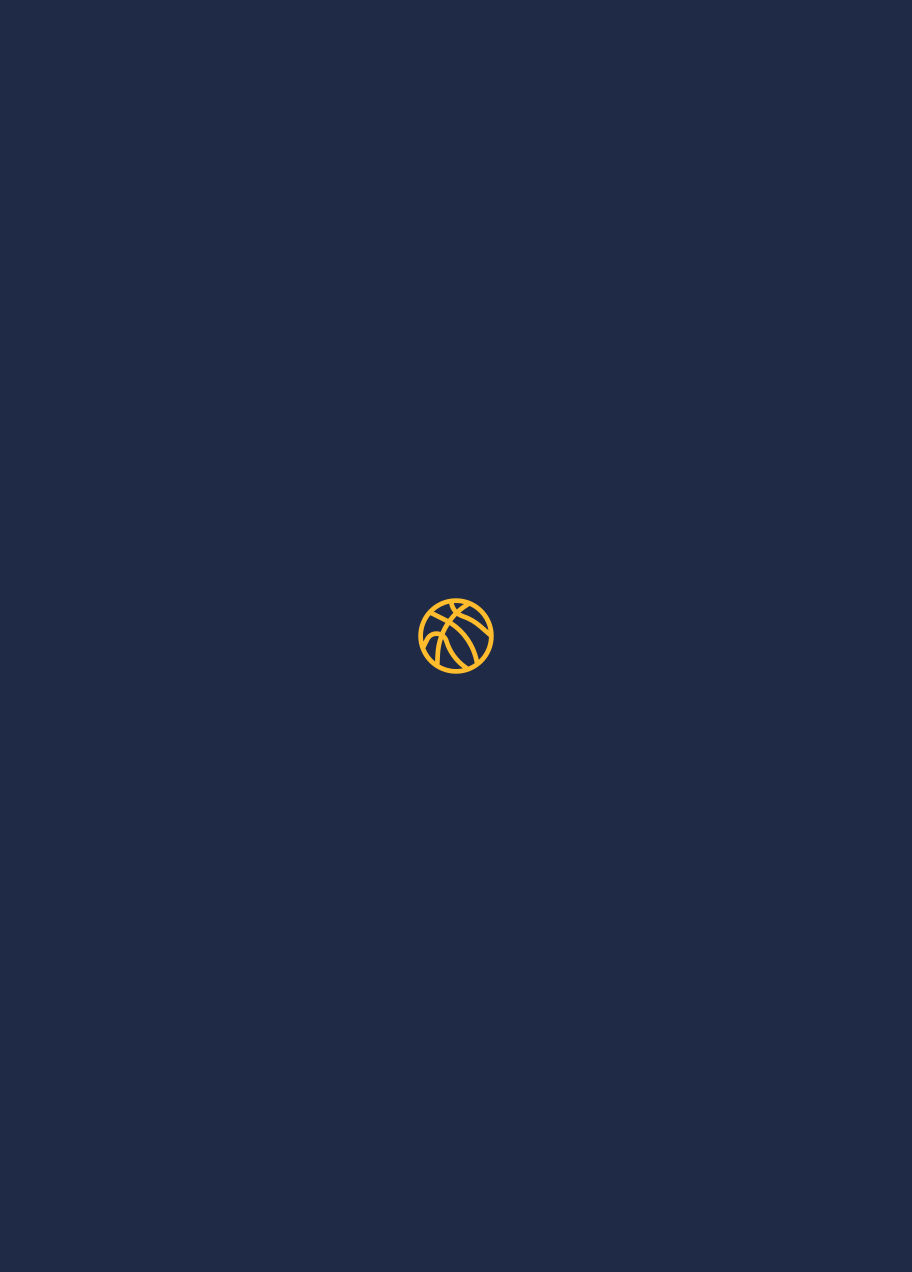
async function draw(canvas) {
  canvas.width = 912;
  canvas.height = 1272;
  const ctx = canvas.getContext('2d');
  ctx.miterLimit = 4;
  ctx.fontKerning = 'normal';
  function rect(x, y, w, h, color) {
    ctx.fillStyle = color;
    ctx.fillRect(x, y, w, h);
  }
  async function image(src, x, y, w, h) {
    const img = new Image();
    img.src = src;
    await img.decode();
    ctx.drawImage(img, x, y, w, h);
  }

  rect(0, 0, 912, 1272, '#1f2b46');
  await image('assets/img1.png', 418, 598, 76, 76);
}

draw(document.querySelector('canvas'));
